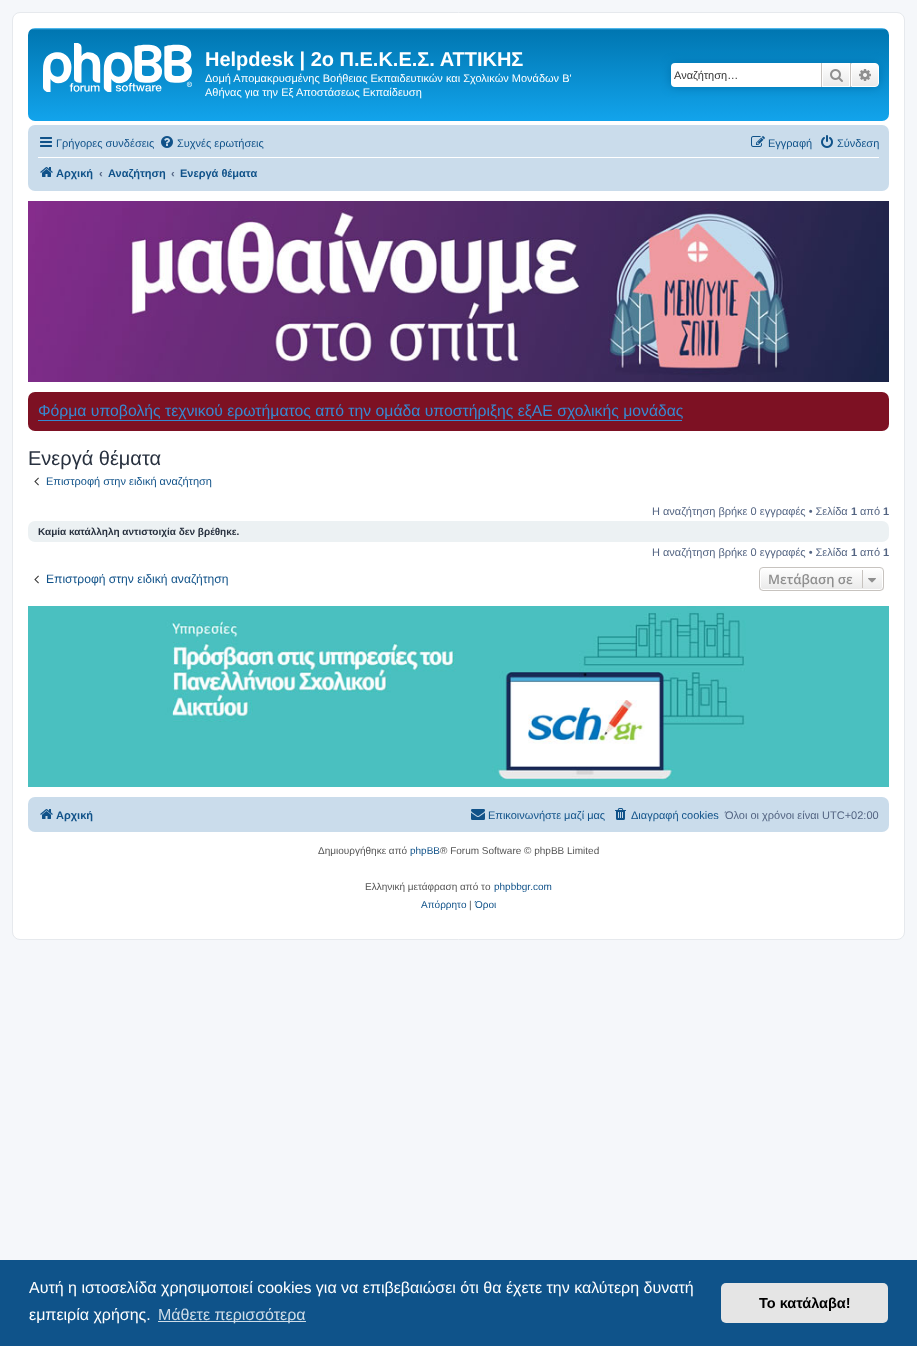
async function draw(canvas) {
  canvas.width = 917;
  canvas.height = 1346;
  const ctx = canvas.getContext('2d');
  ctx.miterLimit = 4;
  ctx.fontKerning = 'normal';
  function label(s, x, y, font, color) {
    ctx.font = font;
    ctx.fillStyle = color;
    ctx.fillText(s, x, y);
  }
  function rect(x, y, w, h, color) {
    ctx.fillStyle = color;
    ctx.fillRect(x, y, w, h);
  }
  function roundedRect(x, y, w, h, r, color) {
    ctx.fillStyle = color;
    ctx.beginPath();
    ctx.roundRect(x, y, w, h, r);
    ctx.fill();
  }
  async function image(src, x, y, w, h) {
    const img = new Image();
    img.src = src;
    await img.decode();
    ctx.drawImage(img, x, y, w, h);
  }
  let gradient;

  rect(0, 0, 917, 1346, '#f5f7fa');
  ctx.fillStyle = '#fff';
  ctx.beginPath();
  ctx.roundRect(12.5, 12.5, 892, 927, 7.5);
  ctx.fill();
  ctx.strokeStyle = '#e6e9ed';
  ctx.stroke();
  gradient = ctx.createLinearGradient(459, 28, 459, 121);
  gradient.addColorStop(0, '#6aceff');
  gradient.addColorStop(0.02, '#0076b1');
  gradient.addColorStop(0.99, '#12a3eb');
  gradient.addColorStop(1, '#12a3eb');
  ctx.fillStyle = gradient;
  ctx.beginPath();
  ctx.roundRect(28, 28, 861, 93, 7);
  ctx.fill();
  await image('assets/img1.png', 43, 43, 149, 49);
  label('Helpdesk | 2ο Π.Ε.Κ.Ε.Σ. ΑΤΤΙΚΗΣ', 205, 66, 'bold 20px Liberation Sans', '#fff');
  label('Δομή Απομακρυσμένης Βοήθειας Εκπαιδευτικών και Σχολικών Μονάδων B\'', 205, 82, '11px Liberation Sans', '#fff');
  label('Αθήνας για την Εξ Αποστάσεως Εκπαίδευση', 205, 96, '11px Liberation Sans', '#fff');
  ctx.fillStyle = '#0075b0';
  ctx.filter = 'blur(5px)';
  ctx.beginPath();
  ctx.roundRect(671, 63, 208, 24, 4);
  ctx.fill();
  ctx.filter = 'none';
  ctx.fillStyle = '#fff';
  ctx.beginPath();
  ctx.roundRect(671, 63, 150, 24, [4, 0, 0, 4]);
  ctx.fill();
  ctx.save();
  ctx.beginPath();
  ctx.rect(674, 69, 140, 12);
  ctx.clip();
  label('Αναζήτηση…', 674, 79, '11px Liberation Sans', '#333');
  ctx.restore();
  gradient = ctx.createLinearGradient(836, 63, 836, 87);
  gradient.addColorStop(0, '#fff');
  gradient.addColorStop(1, '#e9e9e9');
  ctx.fillStyle = gradient;
  ctx.fillRect(823, 64, 26, 22);
  ctx.strokeStyle = '#fff';
  ctx.strokeRect(822.5, 63.5, 27, 23);
  rect(850, 63, 1, 24, '#c7c3bf');
  rect(821, 63, 1, 24, '#c7c3bf');
  await image('assets/img2.png', 830, 69, 13, 13);
  gradient = ctx.createLinearGradient(865, 63, 865, 87);
  gradient.addColorStop(0, '#fff');
  gradient.addColorStop(1, '#e9e9e9');
  ctx.fillStyle = gradient;
  ctx.beginPath();
  ctx.roundRect(851.5, 63.5, 27, 23, [0, 3.5, 3.5, 0]);
  ctx.fill();
  ctx.stroke();
  await image('assets/img3.png', 859, 69, 12, 12);
  roundedRect(28, 125, 861, 66, 7, '#cadceb');
  await image('assets/img4.png', 40, 137, 12, 10);
  label('Γρήγορες συνδέσεις', 56, 147, '11px Liberation Sans', '#105289');
  await image('assets/img5.png', 161, 136, 12, 12);
  label('Συχνές ερωτήσεις', 177, 147, '11px Liberation Sans', '#105289');
  await image('assets/img6.png', 751, 136, 14, 11);
  label('Εγγραφή', 768, 147, '11px Liberation Sans', '#105289');
  await image('assets/img7.png', 821, 135, 12, 13);
  label('Σύνδεση', 837, 147, '11px Liberation Sans', '#105289');
  rect(38, 157, 841, 1, '#fff');
  await image('assets/img8.png', 40, 167, 13, 10);
  label('Αρχική', 56, 177, 'bold 11px Liberation Sans', '#105289');
  label('‹', 99, 177, 'bold 11px Liberation Sans', '#536482');
  label('Αναζήτηση', 108, 177, 'bold 11px Liberation Sans', '#105289');
  label('‹', 171, 177, 'bold 11px Liberation Sans', '#536482');
  label('Ενεργά θέματα', 180, 177, 'bold 11px Liberation Sans', '#105289');
  await image('assets/img9.png', 28, 201, 861, 181);
  roundedRect(28, 392, 861, 39, 7, '#7d1123');
  rect(38, 420, 644, 1, '#368ad2');
  label('Φόρμα υποβολής τεχνικού ερωτήματος από την ομάδα υποστήριξης εξΑΕ σχολικής μονάδας', 38, 416, '15.75px Liberation Sans', '#368ad2');
  label('Ενεργά θέματα', 28, 465, '20px Liberation Sans', '#28313f');
  await image('assets/img10.png', 34, 477, 5, 9);
  label('Επιστροφή στην ειδική αναζήτηση', 46, 485, '11px Liberation Sans', '#105289');
  label('Η αναζήτηση βρήκε 0 εγγραφές • Σελίδα', 652, 515, '11px Liberation Sans', '#536482');
  label('1', 851, 515, 'bold 11px Liberation Sans', '#536482');
  label('από', 860, 515, '11px Liberation Sans', '#536482');
  label('1', 883, 515, 'bold 11px Liberation Sans', '#536482');
  roundedRect(28, 521, 861, 21, 7, '#ecf1f3');
  label('Καμία κατάλληλη αντιστοιχία δεν βρέθηκε.', 38, 535, 'bold 10px Liberation Sans', '#28313f');
  label('Η αναζήτηση βρήκε 0 εγγραφές • Σελίδα', 652, 556, '11px Liberation Sans', '#536482');
  label('1', 851, 556, 'bold 11px Liberation Sans', '#536482');
  label('από', 860, 556, '11px Liberation Sans', '#536482');
  label('1', 883, 556, 'bold 11px Liberation Sans', '#536482');
  await image('assets/img10.png', 34, 575, 5, 9);
  label('Επιστροφή στην ειδική αναζήτηση', 46, 583, '12.1px Liberation Sans', '#105289');
  ctx.save();
  ctx.beginPath();
  ctx.roundRect(759, 567, 125, 24, 4);
  ctx.clip();
  gradient = ctx.createLinearGradient(822, 568, 822, 590);
  gradient.addColorStop(0, '#fff');
  gradient.addColorStop(1, '#e9e9e9');
  ctx.fillStyle = gradient;
  ctx.fillRect(759, 568, 125, 22);
  ctx.restore();
  ctx.beginPath();
  ctx.roundRect(760.5, 568.5, 122, 21, 2.5);
  ctx.stroke();
  ctx.beginPath();
  ctx.roundRect(759.5, 567.5, 124, 23, 3.5);
  ctx.strokeStyle = '#c7c3bf';
  ctx.stroke();
  label('Μετάβαση σε', 768, 584, '600 13px Open Sans', '#8f8f8f');
  rect(862, 570, 1, 18, '#c7c3bf');
  await image('assets/img11.png', 868, 578, 8, 5);
  await image('assets/img12.png', 28, 606, 861, 181);
  roundedRect(28, 797, 861, 35, 7, '#cadceb');
  await image('assets/img8.png', 40, 809, 13, 10);
  label('Αρχική', 56, 819, 'bold 11px Liberation Sans', '#105289');
  await image('assets/img13.png', 471, 809, 14, 11);
  label('Επικοινωνήστε μαζί μας', 488, 819, '11px Liberation Sans', '#105289');
  await image('assets/img14.png', 615, 808, 11, 12);
  label('Διαγραφή cookies', 631, 819, '11px Liberation Sans', '#105289');
  label('Όλοι οι χρόνοι είναι UTC+02:00', 725, 819, '11px Liberation Sans', '#536482');
  label('Δημιουργήθηκε από', 318, 854, '10px Liberation Sans', '#555');
  label('phpBB', 410, 854, '10px Liberation Sans', '#105289');
  label('® Forum Software © phpBB Limited', 440, 854, '10px Liberation Sans', '#555');
  label('Ελληνική μετάφραση από το', 365, 890, '10px Liberation Sans', '#555');
  label('phpbbgr.com', 494, 890, '10px Liberation Sans', '#105289');
  label('Απόρρητο', 421, 908, '10px Liberation Sans', '#105289');
  label('|', 469, 908, '10px Liberation Sans', '#555');
  label('Όροι', 475, 908, '10px Liberation Sans', '#105289');
  rect(0, 1260, 917, 86, '#0f538a');
  label('Αυτή η ιστοσελίδα χρησιμοποιεί cookies για να επιβεβαιώσει ότι θα έχετε την καλύτερη δυνατή', 29, 1293, '16px Liberation Sans', '#fff');
  label('εμπειρία χρήσης.', 29, 1320, '16px Liberation Sans', '#fff');
  rect(158, 1321, 148, 1, '#cfdde8');
  label('Μάθετε περισσότερα', 158, 1320, '16px Liberation Sans', '#cfdde8');
  roundedRect(721, 1283, 167, 40, 5, '#e5e5e5');
  label('Το κατάλαβα!', 759, 1308, 'bold 14.5px Liberation Sans', '#000');
}

draw(document.querySelector('canvas'));
